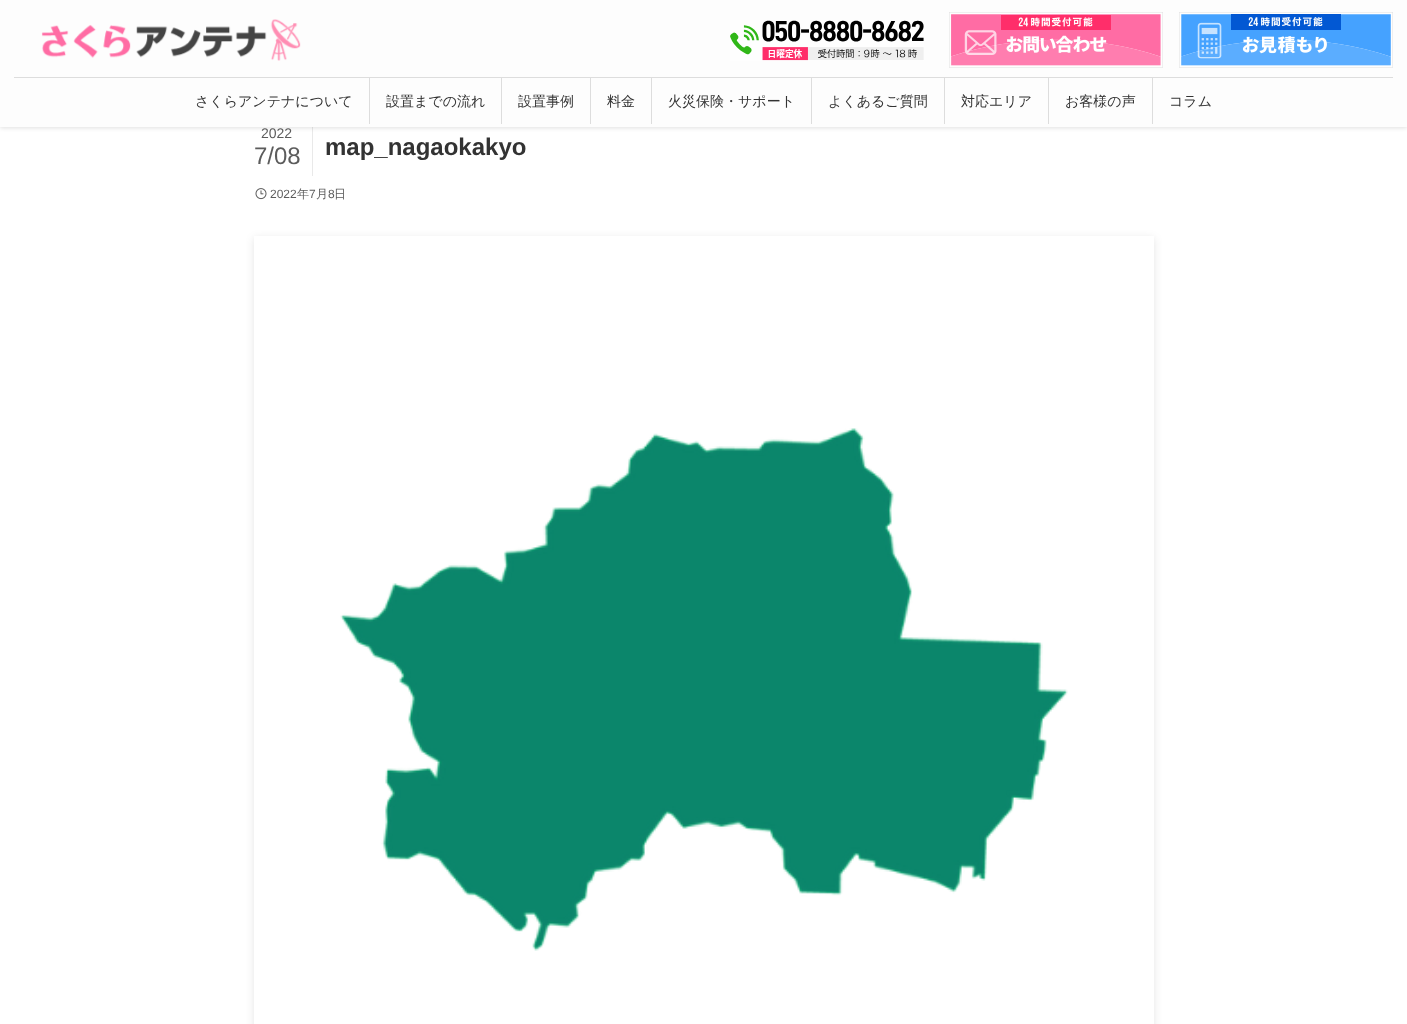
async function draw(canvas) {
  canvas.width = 1407;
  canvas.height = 1024;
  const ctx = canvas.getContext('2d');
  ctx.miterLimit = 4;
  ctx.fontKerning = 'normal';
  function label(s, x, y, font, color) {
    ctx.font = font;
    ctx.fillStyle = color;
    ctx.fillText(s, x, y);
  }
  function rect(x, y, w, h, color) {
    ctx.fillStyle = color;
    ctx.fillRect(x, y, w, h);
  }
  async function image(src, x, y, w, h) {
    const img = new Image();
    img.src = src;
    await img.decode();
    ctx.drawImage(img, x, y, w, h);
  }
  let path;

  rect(0, 0, 1407, 1024, '#fff');
  rect(312, 127, 1, 49, '#e9e9e9');
  ctx.fillStyle = '#0000001f';
  ctx.filter = 'blur(2px)';
  ctx.beginPath();
  ctx.rect(0, 1, 1407, 127);
  ctx.fill();
  ctx.filter = 'none';
  rect(0, 0, 1407, 127, '#fdfdfd');
  await image('assets/img1.png', 41, 19, 260, 42);
  await image('assets/img2.png', 730, 20, 194, 41);
  await image('assets/img3.png', 949, 12, 214, 56);
  await image('assets/img4.png', 1179, 12, 214, 56);
  rect(14, 77, 1379, 1, '#ddd');
  rect(369, 78, 1, 46, '#ddd');
  label('さくらアンテナについて', 195, 106, '500 14px WenQuanYi Zen Hei', '#333');
  rect(501, 78, 1, 46, '#ddd');
  label('設置までの流れ', 386, 106, '500 14px WenQuanYi Zen Hei', '#333');
  rect(590, 78, 1, 46, '#ddd');
  label('設置事例', 518, 106, '500 14px WenQuanYi Zen Hei', '#333');
  rect(651, 78, 1, 46, '#ddd');
  label('料金', 607, 106, '500 14px WenQuanYi Zen Hei', '#333');
  rect(811, 78, 1, 46, '#ddd');
  label('火災保険・サポート', 668, 106, '500 14px WenQuanYi Zen Hei', '#333');
  rect(944, 78, 1, 46, '#ddd');
  label('よくあるご質問', 828, 106, '500 14px WenQuanYi Zen Hei', '#333');
  rect(1048, 78, 1, 46, '#ddd');
  label('対応エリア', 961, 106, '500 14px WenQuanYi Zen Hei', '#333');
  rect(1152, 78, 1, 46, '#ddd');
  label('お客様の声', 1065, 106, '500 14px WenQuanYi Zen Hei', '#333');
  label('コラム', 1169, 106, '500 14px WenQuanYi Zen Hei', '#333');
  label('2022', 261, 138, '14px Liberation Sans', '#5c5c5c');
  label('7/08', 254, 164, '24px Liberation Sans', '#5c5c5c');
  label('map_nagaokakyo', 325, 155, 'bold 24px Liberation Sans', '#333');
  await image('assets/img5.png', 255, 188, 12, 12);
  label('2022', 270, 198, '12px Liberation Sans', '#5c5c5c');
  label('年', 297, 198, '500 12px WenQuanYi Zen Hei', '#5c5c5c');
  label('7', 309, 198, '12px Liberation Sans', '#5c5c5c');
  label('月', 316, 198, '500 12px WenQuanYi Zen Hei', '#5c5c5c');
  label('8', 328, 198, '12px Liberation Sans', '#5c5c5c');
  label('日', 334, 198, '500 12px WenQuanYi Zen Hei', '#5c5c5c');
  ctx.save();
  path = new Path2D('M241 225H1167V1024H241ZM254 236H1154V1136H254Z');
  ctx.clip(path, 'evenodd');
  ctx.fillStyle = '#0000001a';
  ctx.filter = 'blur(4px)';
  ctx.beginPath();
  ctx.rect(254, 238, 900, 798);
  ctx.fill();
  ctx.filter = 'none';
  ctx.restore();
  await image('assets/img6.png', 340, 428, 728, 523);
}

draw(document.querySelector('canvas'));
